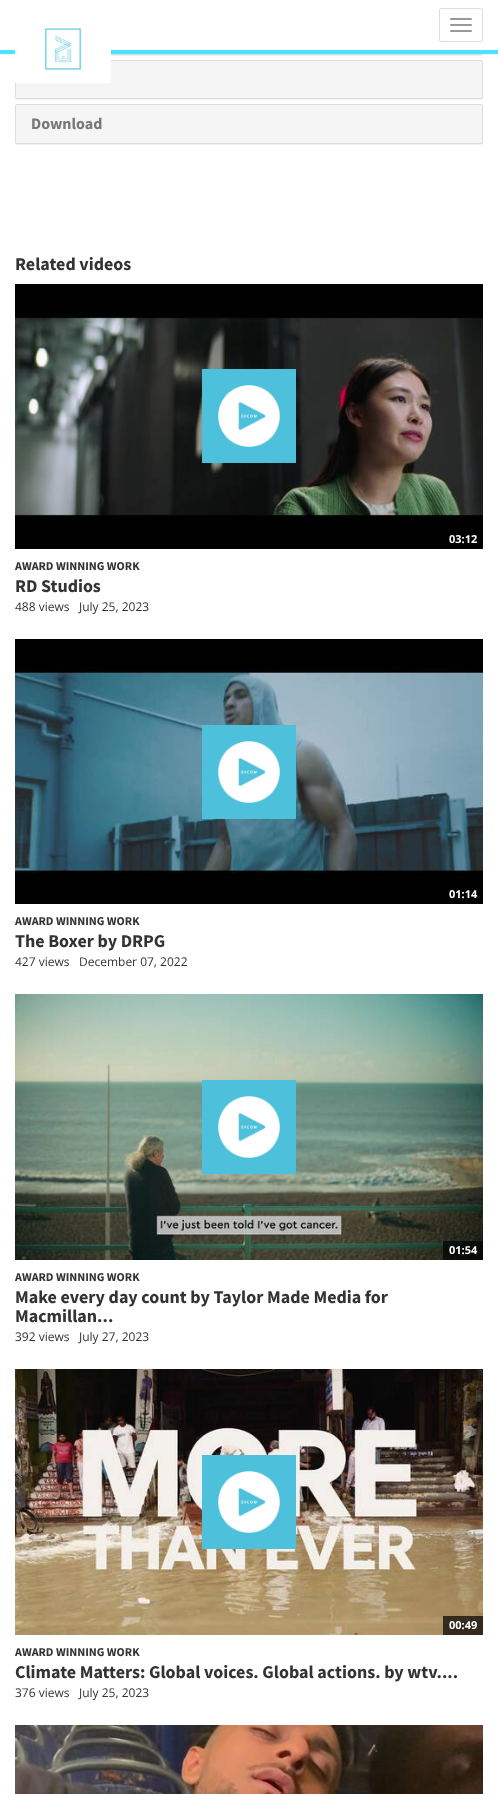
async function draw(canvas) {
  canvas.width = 498;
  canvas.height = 1794;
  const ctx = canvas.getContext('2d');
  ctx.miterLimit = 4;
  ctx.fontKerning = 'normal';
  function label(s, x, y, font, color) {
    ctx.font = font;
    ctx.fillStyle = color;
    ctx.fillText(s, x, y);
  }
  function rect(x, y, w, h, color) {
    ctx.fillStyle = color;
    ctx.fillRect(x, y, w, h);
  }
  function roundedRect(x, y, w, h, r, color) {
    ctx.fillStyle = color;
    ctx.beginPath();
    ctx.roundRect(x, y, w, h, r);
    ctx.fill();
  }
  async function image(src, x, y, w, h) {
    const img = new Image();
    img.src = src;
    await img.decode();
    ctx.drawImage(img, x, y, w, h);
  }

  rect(0, 0, 498, 1794, '#fff');
  ctx.fillStyle = '#0000000d';
  ctx.filter = 'blur(0.5px)';
  ctx.beginPath();
  ctx.roundRect(15, -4, 468, 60, 2);
  ctx.fill();
  ctx.filter = 'none';
  ctx.beginPath();
  ctx.roundRect(15.5, -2.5, 467, 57, 1.5);
  ctx.strokeStyle = '#ddd';
  ctx.stroke();
  ctx.fillStyle = '#ddd';
  ctx.filter = 'blur(1px)';
  ctx.beginPath();
  ctx.rect(0, 0, 498, 54);
  ctx.fill();
  ctx.filter = 'none';
  rect(0, 0, 498, 50, '#fff');
  rect(0, 50, 498, 4, '#48e4ff');
  ctx.fillStyle = '#0000000d';
  ctx.filter = 'blur(0.5px)';
  ctx.beginPath();
  ctx.roundRect(15, 61, 468, 39, 2);
  ctx.fill();
  ctx.filter = 'none';
  ctx.beginPath();
  ctx.roundRect(15.5, 60.5, 467, 38, 1.5);
  ctx.stroke();
  ctx.fillStyle = '#f5f5f5';
  ctx.beginPath();
  ctx.roundRect(16, 61, 466, 37, [1, 1, 0, 0]);
  ctx.fill();
  await image('assets/img1.png', 15, 28, 96, 55);
  ctx.beginPath();
  ctx.roundRect(439.5, 8.5, 43, 33, 1.5);
  ctx.stroke();
  roundedRect(450, 18, 22, 2, 1, '#999');
  roundedRect(450, 24, 22, 2, 1, '#999');
  roundedRect(450, 30, 22, 2, 1, '#999');
  ctx.fillStyle = '#0000000d';
  ctx.filter = 'blur(0.5px)';
  ctx.beginPath();
  ctx.roundRect(15, 105, 468, 40, 2);
  ctx.fill();
  ctx.filter = 'none';
  ctx.beginPath();
  ctx.roundRect(15.5, 104.5, 467, 39, 1.5);
  ctx.stroke();
  ctx.fillStyle = '#f5f5f5';
  ctx.beginPath();
  ctx.roundRect(16, 105, 466, 38, [1, 1, 0, 0]);
  ctx.fill();
  label('Download', 31, 129, 'bold 16px Source Sans Pro', '#777');
  label('Related videos', 15, 270, 'bold 18px Source Sans Pro', '#333');
  await image('assets/img2.png', 15, 284, 468, 265);
  await image('assets/img3.png', 202, 369, 94, 94);
  label('03:12', 449, 543, 'bold 11px Open Sans', '#fff');
  label('AWARD WINNING WORK', 15, 570, 'bold 12px Source Sans Pro', '#333');
  label('RD Studios', 15, 592, 'bold 18px Source Sans Pro', '#333');
  label('488 views', 15, 611, '12px Open Sans', '#333');
  label('July 25, 2023', 79, 611, '12px Open Sans', '#333');
  await image('assets/img4.png', 15, 639, 468, 265);
  await image('assets/img3.png', 202, 725, 94, 94);
  label('01:14', 449, 898, 'bold 11px Open Sans', '#fff');
  label('AWARD WINNING WORK', 15, 925, 'bold 12px Source Sans Pro', '#333');
  label('The Boxer by DRPG', 15, 947, 'bold 18px Source Sans Pro', '#333');
  label('427 views', 15, 966, '12px Open Sans', '#333');
  label('December 07, 2022', 79, 966, '12px Open Sans', '#333');
  await image('assets/img5.png', 15, 994, 468, 266);
  await image('assets/img3.png', 202, 1080, 94, 94);
  rect(443, 1241, 40, 19, '#000000b3');
  label('01:54', 449, 1254, 'bold 11px Open Sans', '#fff');
  label('AWARD WINNING WORK', 15, 1281, 'bold 12px Source Sans Pro', '#333');
  label('Make every day count by Taylor Made Media for', 15, 1303, 'bold 18px Source Sans Pro', '#333');
  label('Macmillan...', 15, 1322, 'bold 18px Source Sans Pro', '#333');
  label('392 views', 15, 1341, '12px Open Sans', '#333');
  label('July 27, 2023', 79, 1341, '12px Open Sans', '#333');
  await image('assets/img6.png', 15, 1369, 468, 266);
  await image('assets/img3.png', 202, 1455, 94, 94);
  rect(443, 1616, 40, 19, '#000000b3');
  label('00:49', 449, 1629, 'bold 11px Open Sans', '#fff');
  label('AWARD WINNING WORK', 15, 1656, 'bold 12px Source Sans Pro', '#333');
  label('Climate Matters: Global voices. Global actions. by wtv....', 15, 1678, 'bold 18px Source Sans Pro', '#333');
  label('376 views', 15, 1697, '12px Open Sans', '#333');
  label('July 25, 2023', 79, 1697, '12px Open Sans', '#333');
  await image('assets/img7.png', 15, 1725, 468, 69);
}

draw(document.querySelector('canvas'));
